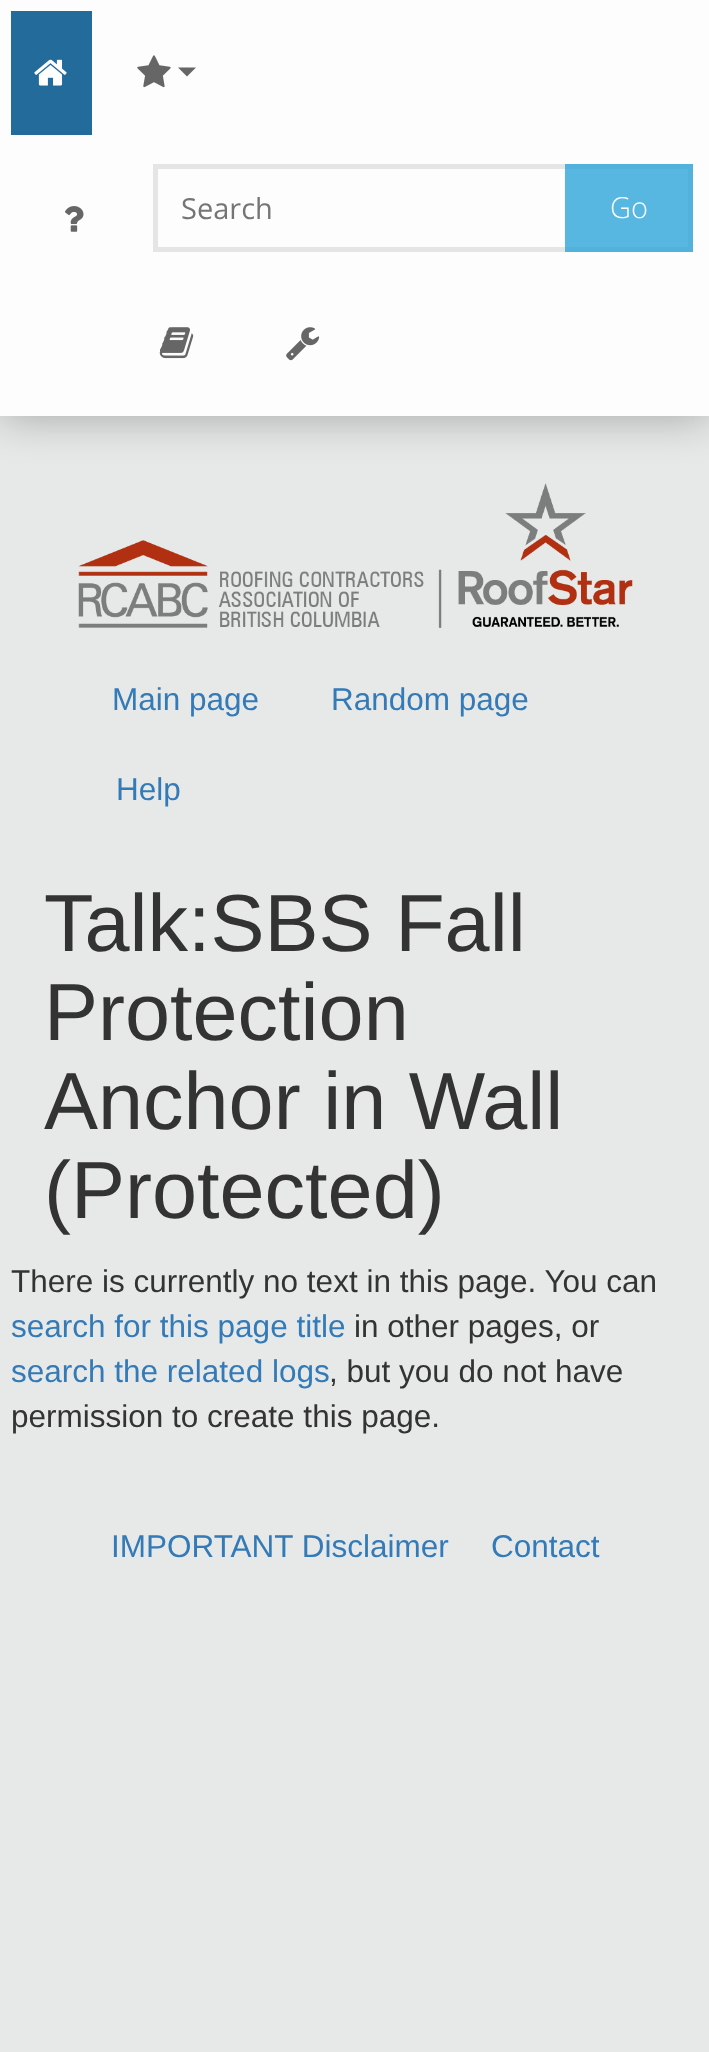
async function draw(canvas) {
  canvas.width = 709;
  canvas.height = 2052;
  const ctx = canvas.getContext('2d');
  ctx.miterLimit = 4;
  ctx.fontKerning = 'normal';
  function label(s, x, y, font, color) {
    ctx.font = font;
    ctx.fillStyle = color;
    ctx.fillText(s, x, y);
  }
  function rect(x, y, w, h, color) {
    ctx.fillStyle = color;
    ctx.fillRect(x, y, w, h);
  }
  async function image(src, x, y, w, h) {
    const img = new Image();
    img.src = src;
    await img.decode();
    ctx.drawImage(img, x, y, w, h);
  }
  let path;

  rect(0, 0, 709, 2052, '#e7e9e9');
  await image('assets/img6.png', 78, 483, 555, 145);
  ctx.fillStyle = '#0000004d';
  ctx.filter = 'blur(22.5px)';
  ctx.beginPath();
  ctx.rect(0, 0, 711, 416);
  ctx.fill();
  ctx.filter = 'none';
  rect(0, 0, 709, 416, '#fdfdfd');
  rect(11, 11, 81, 124, '#236b9b');
  await image('assets/img1.png', 34, 59, 33, 27);
  await image('assets/img2.png', 137, 55, 34, 33);
  ctx.fillStyle = '#666';
  path = new Path2D('M178 67.5H196L187 76.5Z');
  ctx.fill(path);
  await image('assets/img3.png', 65, 206, 19, 26);
  ctx.strokeStyle = '#e5e5e5';
  ctx.lineWidth = 5;
  ctx.strokeRect(155.5, 166.5, 535, 83);
  label('Search', 181, 219, '29px Open Sans', '#757575');
  rect(565, 164, 128, 88, '#2da5dacc');
  label('Go', 610, 218, '300 29px Open Sans', '#fff');
  await image('assets/img4.png', 159, 327, 35, 32);
  await image('assets/img5.png', 286, 327, 34, 34);
  label('Main page', 112, 710, '31.5px Liberation Sans', '#337ab7');
  label('Random page', 331, 710, '31.5px Liberation Sans', '#337ab7');
  label('Help', 116, 800, '31.5px Liberation Sans', '#337ab7');
  label('Talk:SBS Fall', 44, 951, '81px Liberation Sans', '#333');
  label('Protection', 44, 1040, '81px Liberation Sans', '#333');
  label('Anchor in Wall', 44, 1129, '81px Liberation Sans', '#333');
  label('(Protected)', 44, 1218, '81px Liberation Sans', '#333');
  label('There is currently no text in this page. You can', 11, 1292, '31.5px Liberation Sans', '#333');
  label('search for this page title', 11, 1337, '31.5px Liberation Sans', '#337ab7');
  label('in other pages, or', 354, 1337, '31.5px Liberation Sans', '#333');
  label('search the related logs', 11, 1382, '31.5px Liberation Sans', '#337ab7');
  label(', but you do not have', 329, 1382, '31.5px Liberation Sans', '#333');
  label('permission to create this page.', 11, 1427, '31.5px Liberation Sans', '#333');
  label('IMPORTANT Disclaimer', 111, 1557, '31.5px Liberation Sans', '#337ab7');
  label('Contact', 491, 1557, '31.5px Liberation Sans', '#337ab7');
}

draw(document.querySelector('canvas'));
